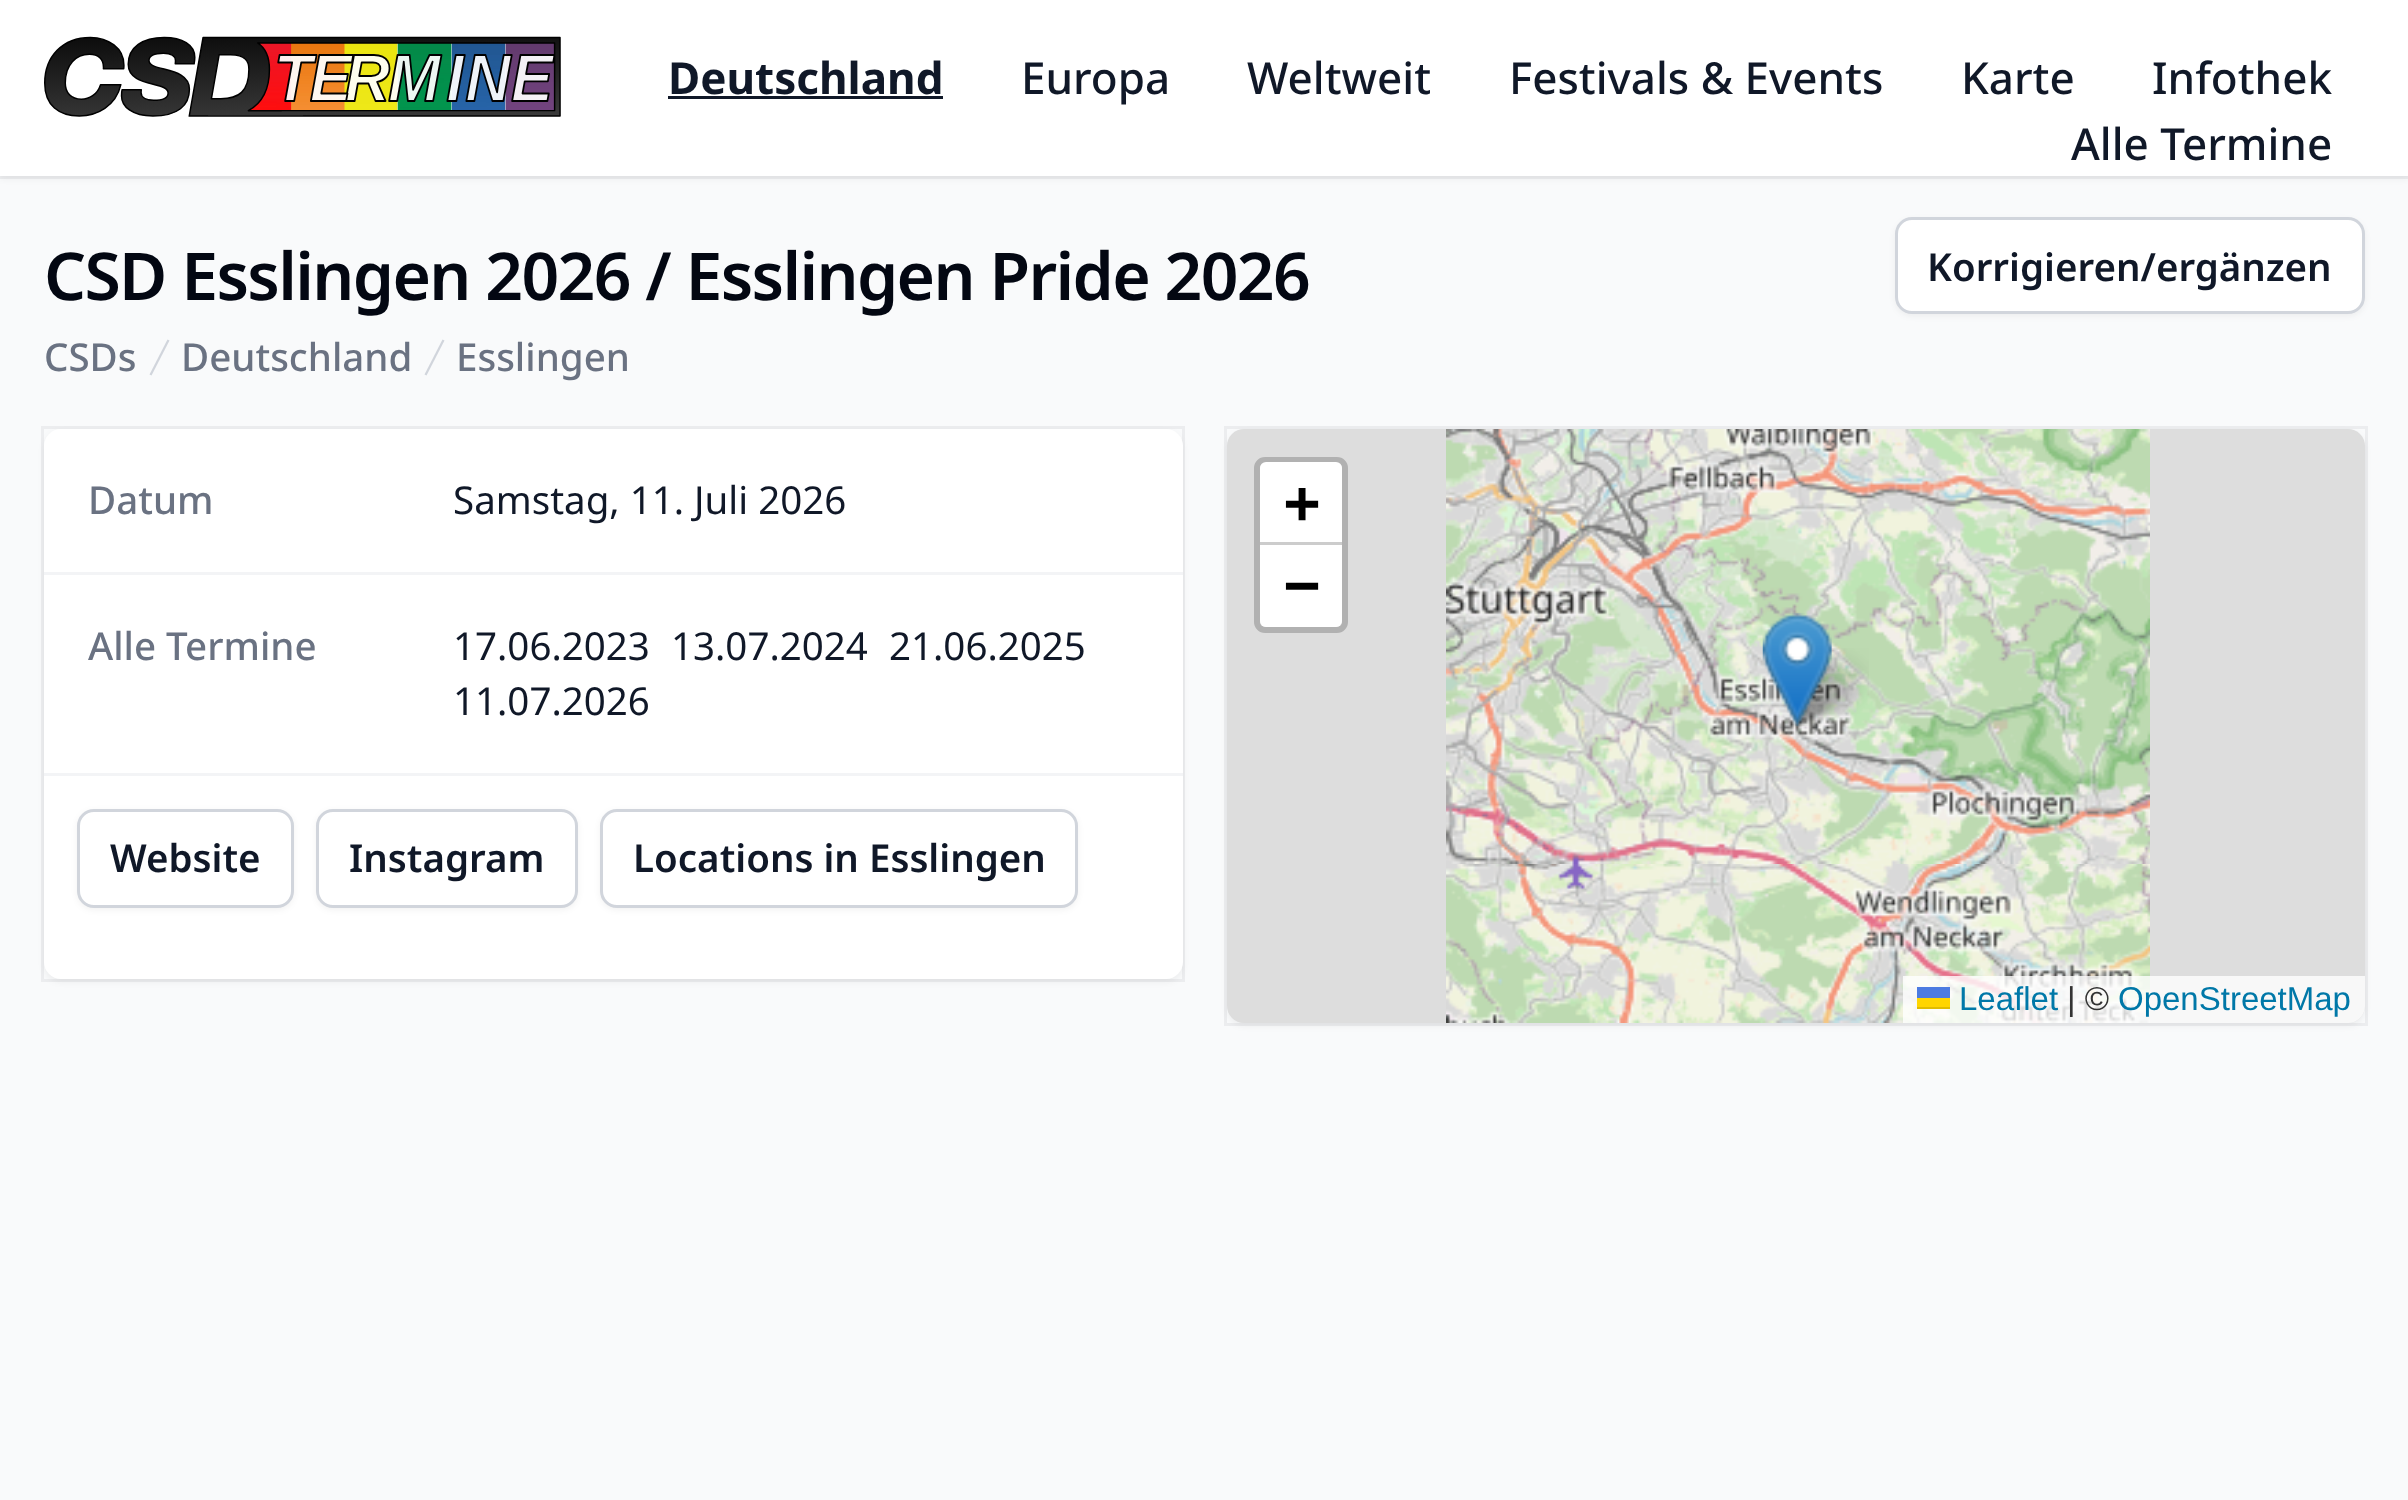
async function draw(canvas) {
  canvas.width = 2408;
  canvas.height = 1500;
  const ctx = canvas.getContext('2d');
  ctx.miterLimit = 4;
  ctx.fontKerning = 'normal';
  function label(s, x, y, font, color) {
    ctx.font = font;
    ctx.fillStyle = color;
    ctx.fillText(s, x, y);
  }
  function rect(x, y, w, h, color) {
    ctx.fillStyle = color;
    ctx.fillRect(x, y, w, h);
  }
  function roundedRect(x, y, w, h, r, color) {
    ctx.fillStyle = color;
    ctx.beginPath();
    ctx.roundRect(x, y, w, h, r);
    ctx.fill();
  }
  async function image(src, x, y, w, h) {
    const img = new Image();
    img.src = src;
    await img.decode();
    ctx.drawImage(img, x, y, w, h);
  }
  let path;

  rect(0, 0, 2408, 1500, '#f9fafb');
  ctx.fillStyle = '#0000000d';
  ctx.filter = 'blur(3px)';
  ctx.beginPath();
  ctx.rect(0, 3, 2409, 176);
  ctx.fill();
  ctx.filter = 'none';
  ctx.strokeStyle = '#0307120d';
  ctx.lineWidth = 3;
  ctx.strokeRect(-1.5, -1.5, 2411, 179);
  rect(0, 0, 2408, 176, '#fff');
  await image('assets/img1.png', 44, 36, 517, 81);
  label('Deutschland', 668, 94, 'bold 44px Noto Sans', '#101828');
  rect(668, 96, 275, 3, '#101828');
  label('Europa', 1021, 94, '500 44px Noto Sans', '#101828');
  label('Weltweit', 1247, 94, '500 44px Noto Sans', '#101828');
  label('Festivals & Events', 1509, 94, '500 44px Noto Sans', '#101828');
  label('Karte', 1961, 94, '500 44px Noto Sans', '#101828');
  label('Infothek', 2152, 94, '500 44px Noto Sans', '#101828');
  label('Alle Termine', 2071, 160, '500 44px Noto Sans', '#101828');
  ctx.letterSpacing = '-1.65px';
  label('CSD Esslingen 2026 / Esslingen Pride 2026', 44, 300, '600 66px Noto Sans', '#030712');
  ctx.fillStyle = '#0000000d';
  ctx.filter = 'blur(3px)';
  ctx.beginPath();
  ctx.roundRect(1895, 220, 470, 96, 17);
  ctx.fill();
  ctx.filter = 'none';
  ctx.fillStyle = '#fff';
  ctx.beginPath();
  ctx.roundRect(1896.5, 218.5, 467, 94, 15.5);
  ctx.fill();
  ctx.strokeStyle = '#d1d5dc';
  ctx.stroke();
  ctx.letterSpacing = '0px';
  label('Korrigieren/ergänzen', 1927, 281, '600 38.5px Noto Sans', '#101828');
  label('CSDs', 44, 371, '500 38.5px Noto Sans', '#6a7282');
  ctx.fillStyle = '#d1d5dc';
  path = new Path2D('M149.5 374.5L167.5 339.5L169.5 340.5L151.5 375.5Z');
  ctx.fill(path);
  label('Deutschland', 181, 371, '500 38.5px Noto Sans', '#6a7282');
  ctx.fillStyle = '#d1d5dc';
  path = new Path2D('M424.5 374.5L442.5 339.5L444.5 340.5L426.5 375.5Z');
  ctx.fill(path);
  label('Esslingen', 456, 371, '500 38.5px Noto Sans', '#6a7282');
  ctx.fillStyle = '#0000000d';
  ctx.filter = 'blur(3px)';
  ctx.beginPath();
  ctx.roundRect(44, 432, 1139, 550, 17);
  ctx.fill();
  ctx.filter = 'none';
  ctx.strokeStyle = '#0307120d';
  ctx.strokeRect(42.5, 427.5, 1141, 553);
  roundedRect(44, 429, 1139, 550, 17, '#fff');
  rect(44, 572, 1139, 3, '#f3f4f6');
  label('Datum', 88, 514, '500 38.5px Noto Sans', '#6a7282');
  label('Samstag, 11. Juli 2026', 453, 514, '38.5px Noto Sans', '#101828');
  rect(44, 773, 1139, 3, '#f3f4f6');
  label('Alle Termine', 88, 660, '500 38.5px Noto Sans', '#6a7282');
  label('17.06.2023', 453, 660, '38.5px Noto Sans', '#101828');
  label('13.07.2024', 671, 660, '38.5px Noto Sans', '#101828');
  label('21.06.2025', 889, 660, '38.5px Noto Sans', '#101828');
  label('11.07.2026', 453, 715, '38.5px Noto Sans', '#101828');
  ctx.fillStyle = '#0000000d';
  ctx.filter = 'blur(3px)';
  ctx.beginPath();
  ctx.roundRect(77, 811, 217, 99, 17);
  ctx.fill();
  ctx.filter = 'none';
  ctx.fillStyle = '#fff';
  ctx.beginPath();
  ctx.roundRect(78.5, 810.5, 214, 96, 15.5);
  ctx.fill();
  ctx.strokeStyle = '#d1d5dc';
  ctx.stroke();
  label('Website', 110, 872, '600 38.5px Noto Sans', '#101828');
  ctx.fillStyle = '#0000000d';
  ctx.filter = 'blur(3px)';
  ctx.beginPath();
  ctx.roundRect(316, 811, 262, 99, 17);
  ctx.fill();
  ctx.filter = 'none';
  ctx.fillStyle = '#fff';
  ctx.beginPath();
  ctx.roundRect(317.5, 810.5, 259, 96, 15.5);
  ctx.fill();
  ctx.stroke();
  label('Instagram', 349, 872, '600 38.5px Noto Sans', '#101828');
  ctx.fillStyle = '#0000000d';
  ctx.filter = 'blur(3px)';
  ctx.beginPath();
  ctx.roundRect(600, 811, 478, 99, 17);
  ctx.fill();
  ctx.filter = 'none';
  ctx.fillStyle = '#fff';
  ctx.beginPath();
  ctx.roundRect(601.5, 810.5, 475, 96, 15.5);
  ctx.fill();
  ctx.stroke();
  label('Locations in Esslingen', 633, 872, '600 38.5px Noto Sans', '#101828');
  ctx.fillStyle = '#0000000d';
  ctx.filter = 'blur(3px)';
  ctx.beginPath();
  ctx.roundRect(1227, 432, 1138, 594, 17);
  ctx.fill();
  ctx.filter = 'none';
  ctx.strokeStyle = '#0307120d';
  ctx.strokeRect(1225.5, 427.5, 1141, 597);
  roundedRect(1227, 429, 1138, 594, 17, '#ddd');
  await image('assets/img2.png', 1446, 429, 704, 435);
  await image('assets/img3.png', 1446, 864, 704, 159);
  await image('assets/img5.png', 1787, 648, 82, 79);
  await image('assets/img4.png', 1762, 613, 70, 114);
  ctx.beginPath();
  ctx.roundRect(1257, 460, 88, 170, 8);
  ctx.strokeStyle = '#b1b1b1';
  ctx.lineWidth = 6;
  ctx.stroke();
  ctx.fillStyle = '#fff';
  ctx.beginPath();
  ctx.roundRect(1260, 462, 82, 80, [6, 6, 0, 0]);
  ctx.fill();
  rect(1260, 542, 82, 3, '#ccc');
  label('+', 1284, 523, 'bold 60px DejaVu Sans Mono', '#000');
  ctx.fillStyle = '#fff';
  ctx.beginPath();
  ctx.roundRect(1260, 545, 82, 82, [0, 0, 6, 6]);
  ctx.fill();
  label('−', 1284, 605, 'bold 60px DejaVu Sans Mono', '#000');
  ctx.fillStyle = '#ffffffcc';
  ctx.beginPath();
  ctx.roundRect(1903, 976, 462, 47, [0, 0, 17, 0]);
  ctx.fill();
  label('Leaflet', 1959, 1010, '33px Liberation Sans', '#0078a8');
  rect(1917, 987, 33, 11, '#4c7be1');
  rect(1917, 998, 33, 9, '#ffd500');
  rect(1917, 1007, 33, 2, '#e0bc00');
  label('| ©', 2067, 1010, '33px Liberation Sans', '#333');
  label('OpenStreetMap', 2118, 1010, '33px Liberation Sans', '#0078a8');
}

draw(document.querySelector('canvas'));
